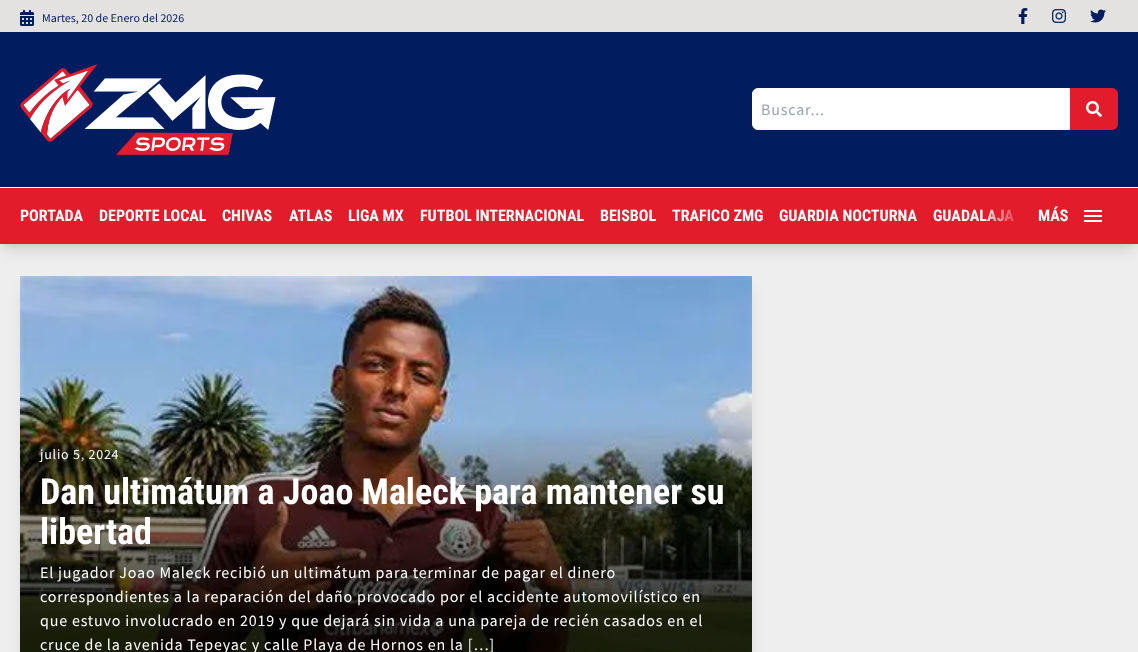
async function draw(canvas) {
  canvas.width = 1138;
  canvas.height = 652;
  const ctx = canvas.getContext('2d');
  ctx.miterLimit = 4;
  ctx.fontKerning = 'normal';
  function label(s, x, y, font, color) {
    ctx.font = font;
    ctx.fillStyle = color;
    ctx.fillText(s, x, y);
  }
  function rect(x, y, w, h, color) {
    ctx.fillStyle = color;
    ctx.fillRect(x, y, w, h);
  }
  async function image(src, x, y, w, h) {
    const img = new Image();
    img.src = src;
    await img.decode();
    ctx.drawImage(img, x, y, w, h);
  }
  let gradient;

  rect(0, 0, 1138, 652, '#eee');
  ctx.fillStyle = '#0000001a';
  ctx.filter = 'blur(3px)';
  ctx.beginPath();
  ctx.rect(4, 8, 1130, 236);
  ctx.fill();
  ctx.filter = 'none';
  ctx.filter = 'blur(7.5px)';
  ctx.beginPath();
  ctx.rect(3, 13, 1132, 238);
  ctx.fill();
  ctx.filter = 'none';
  rect(0, 0, 1138, 32, '#e3e2e0');
  await image('assets/img1.png', 20, 10, 14, 16);
  label('Martes, 20 de Enero del 2026', 42, 22, '12px Source Sans Pro', '#011d5f');
  await image('assets/img2.png', 1018, 8, 10, 16);
  await image('assets/img3.png', 1052, 9, 14, 14);
  await image('assets/img4.png', 1090, 9, 16, 14);
  rect(0, 32, 1138, 155, '#011d5f');
  await image('assets/img5.png', 20, 64, 256, 91);
  ctx.fillStyle = '#fff';
  ctx.beginPath();
  ctx.roundRect(752.5, 88.5, 317, 41, [5.5, 0, 0, 5.5]);
  ctx.fill();
  ctx.strokeStyle = '#fff';
  ctx.stroke();
  ctx.letterSpacing = '0.8px';
  label('Buscar...', 761, 115, '16px Source Sans Pro', '#9ca3af');
  ctx.fillStyle = '#e21c2a';
  ctx.beginPath();
  ctx.roundRect(1070, 88, 48, 42, [0, 6, 6, 0]);
  ctx.fill();
  await image('assets/img6.png', 1086, 101, 16, 16);
  rect(0, 188, 1138, 56, '#e21c2a');
  rect(0, 187, 1138, 1, '#fff');
  ctx.letterSpacing = '0px';
  label('PORTADA', 20, 221, 'bold 16px Roboto Condensed', '#fff');
  label('DEPORTE LOCAL', 99, 221, 'bold 16px Roboto Condensed', '#fff');
  label('CHIVAS', 222, 221, 'bold 16px Roboto Condensed', '#fff');
  label('ATLAS', 289, 221, 'bold 16px Roboto Condensed', '#fff');
  label('LIGA MX', 348, 221, 'bold 16px Roboto Condensed', '#fff');
  label('FUTBOL INTERNACIONAL', 420, 221, 'bold 16px Roboto Condensed', '#fff');
  label('BEISBOL', 600, 221, 'bold 16px Roboto Condensed', '#fff');
  label('TRAFICO ZMG', 672, 221, 'bold 16px Roboto Condensed', '#fff');
  label('GUARDIA NOCTURNA', 779, 221, 'bold 16px Roboto Condensed', '#fff');
  label('GUADALAJA', 933, 221, 'bold 16px Roboto Condensed', '#fff');
  gradient = ctx.createLinearGradient(982, 216, 1022, 216);
  gradient.addColorStop(0, '#e21c2a00');
  gradient.addColorStop(1, '#e21c2a');
  ctx.fillStyle = gradient;
  ctx.fillRect(983, 209, 32, 13);
  label('MÁS', 1038, 221, 'bold 16px Roboto Condensed', '#fff');
  rect(1084, 215, 18, 2, '#fff');
  rect(1084, 210, 18, 2, '#fff');
  rect(1084, 220, 18, 2, '#fff');
  ctx.fillStyle = '#0000001a';
  ctx.filter = 'blur(7.5px)';
  ctx.beginPath();
  ctx.rect(23, 289, 726, 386);
  ctx.fill();
  ctx.filter = 'none';
  await image('assets/img7.png', 20, 276, 732, 376);
  ctx.letterSpacing = '0.75px';
  label('julio 5, 2024', 40, 459, '14px Source Sans Pro', '#fff');
  ctx.letterSpacing = '0px';
  label('Dan ultimátum a Joao Maleck para mantener su', 40, 504, 'bold 36px Roboto Condensed', '#fff');
  label('libertad', 40, 544, 'bold 36px Roboto Condensed', '#fff');
  ctx.letterSpacing = '0.8px';
  label('El jugador Joao Maleck recibió un ultimátum para terminar de pagar el dinero', 40, 578, '16px Source Sans Pro', '#fff');
  label('correspondientes a la reparación del daño provocado por el accidente automovilístico en', 40, 602, '16px Source Sans Pro', '#fff');
  label('que estuvo involucrado en 2019 y que dejará sin vida a una pareja de recién casados en el', 40, 626, '16px Source Sans Pro', '#fff');
  label('cruce de la avenida Tepeyac y calle Playa de Hornos en la […]', 40, 650, '16px Source Sans Pro', '#fff');
}

draw(document.querySelector('canvas'));
